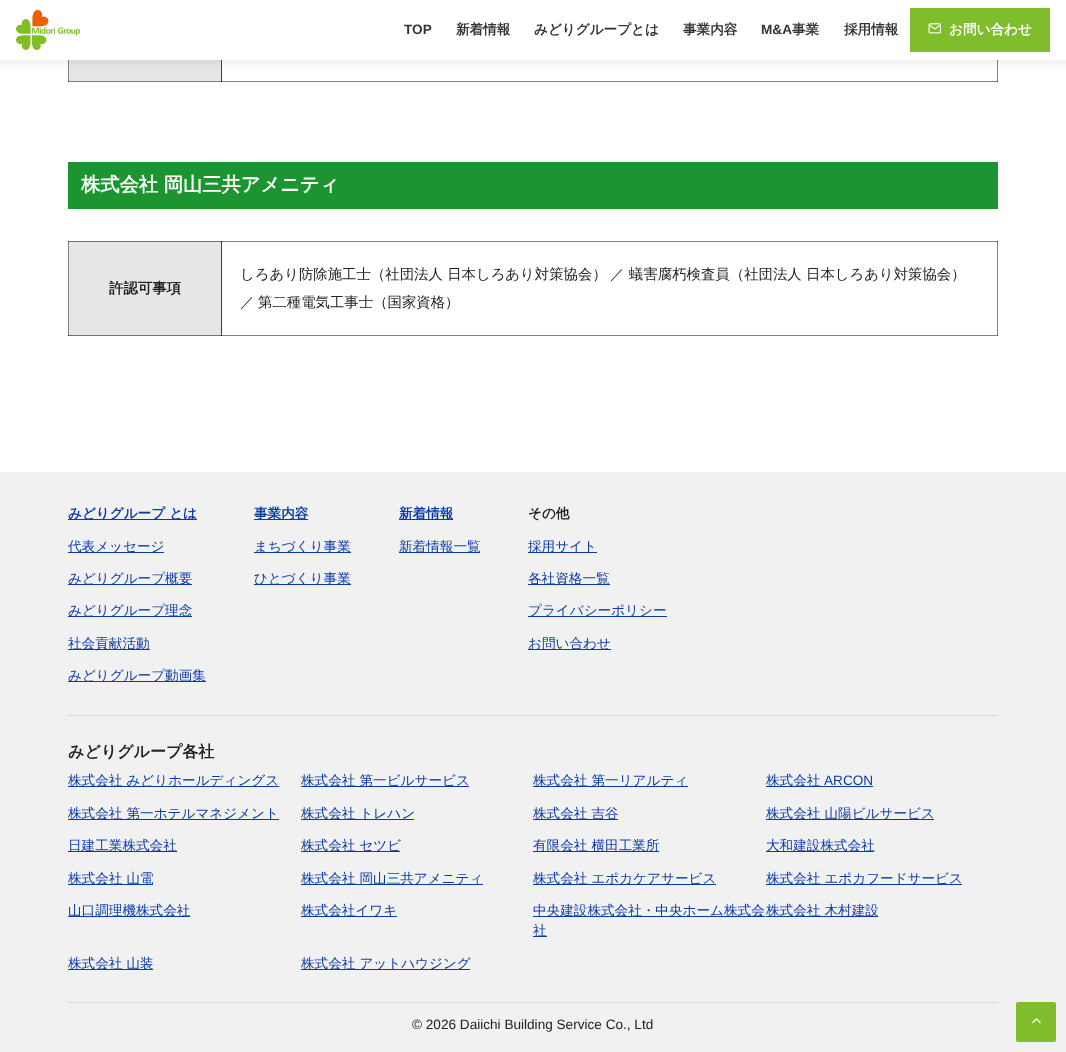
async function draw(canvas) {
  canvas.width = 1066;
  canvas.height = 1052;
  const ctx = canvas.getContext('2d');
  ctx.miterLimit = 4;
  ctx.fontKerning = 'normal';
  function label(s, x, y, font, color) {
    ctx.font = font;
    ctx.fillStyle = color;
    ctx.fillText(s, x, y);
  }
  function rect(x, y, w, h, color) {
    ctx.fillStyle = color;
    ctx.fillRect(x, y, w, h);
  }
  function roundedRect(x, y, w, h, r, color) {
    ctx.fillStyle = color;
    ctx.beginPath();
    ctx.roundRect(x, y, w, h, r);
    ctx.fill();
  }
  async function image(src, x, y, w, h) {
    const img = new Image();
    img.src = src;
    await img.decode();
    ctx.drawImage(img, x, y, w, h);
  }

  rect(0, 0, 1066, 1052, '#fff');
  rect(68, 241, 1, 95, '#808080');
  rect(68, 335, 1, 1, '#404040');
  rect(68, 241, 1, 1, '#404040');
  rect(221, 241, 1, 95, '#404040');
  rect(221, 335, 777, 1, '#808080');
  rect(221, 335, 1, 1, '#101010');
  rect(997, 241, 1, 95, '#808080');
  rect(997, 335, 1, 1, '#404040');
  rect(68, 60, 1, 22, '#808080');
  rect(68, 81, 154, 1, '#808080');
  rect(68, 81, 1, 1, '#404040');
  rect(221, 60, 1, 22, '#404040');
  rect(221, 81, 777, 1, '#808080');
  rect(221, 81, 1, 1, '#101010');
  rect(997, 60, 1, 22, '#808080');
  rect(997, 81, 1, 1, '#404040');
  rect(69, 60, 152, 21, '#e6e6e6');
  ctx.fillStyle = '#0000000d';
  ctx.filter = 'blur(2.5px)';
  ctx.beginPath();
  ctx.rect(-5, -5, 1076, 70);
  ctx.fill();
  ctx.filter = 'none';
  rect(0, 0, 1066, 60, '#fff');
  await image('assets/img1.png', 16, 10, 64, 40);
  label('TOP', 404, 34, 'bold 13.6px Liberation Sans', '#333');
  label('新着情報', 456, 34, 'bold 13.6px WenQuanYi Zen Hei', '#333');
  label('みどりグループとは', 534, 34, 'bold 13.6px WenQuanYi Zen Hei', '#333');
  label('事業内容', 683, 34, 'bold 13.6px WenQuanYi Zen Hei', '#333');
  label('M&A', 761, 34, 'bold 13.6px Liberation Sans', '#333');
  label('事業', 792, 34, 'bold 13.6px WenQuanYi Zen Hei', '#333');
  label('採用情報', 844, 34, 'bold 13.6px WenQuanYi Zen Hei', '#333');
  rect(910, 8, 140, 44, '#80bd2d');
  await image('assets/img2.png', 928, 23, 14, 11);
  label('お問い合わせ', 949, 34, 'bold 13.6px WenQuanYi Zen Hei', '#fff');
  rect(68, 162, 930, 47, '#1c9531');
  label('株式会社 岡山三共アメニティ', 81, 191, 'bold 19.25px WenQuanYi Zen Hei', '#fff');
  rect(69, 242, 152, 93, '#e6e6e6');
  rect(69, 335, 152, 1, '#737373');
  rect(69, 241, 152, 1, '#737373');
  label('許認可事項', 109, 293, 'bold 14.4px WenQuanYi Zen Hei', '#222');
  rect(221, 241, 777, 1, '#808080');
  rect(221, 241, 1, 1, '#101010');
  rect(997, 241, 1, 1, '#404040');
  label('しろあり防除施工士（社団法人 日本しろあり対策協会）', 240, 279, '500 14.4px WenQuanYi Zen Hei', '#222');
  label('／', 610, 279, '500 14.4px WenQuanYi Zen Hei', '#222');
  label('蟻害腐朽検査員（社団法人 日本しろあり対策協会）', 629, 279, '500 14.4px WenQuanYi Zen Hei', '#222');
  label('／', 240, 307, '500 14.4px WenQuanYi Zen Hei', '#222');
  label('第二種電気工事士（国家資格）', 258, 307, '500 14.4px WenQuanYi Zen Hei', '#222');
  rect(0, 472, 1066, 580, '#f1f1f1');
  rect(68, 519, 129, 1, '#0c3ba8');
  label('みどりグループ とは', 68, 518, 'bold 13.6px WenQuanYi Zen Hei', '#0c3ba8');
  rect(68, 552, 96, 1, '#0c3ba8');
  label('代表メッセージ', 68, 551, '500 13.6px WenQuanYi Zen Hei', '#0c3ba8');
  rect(68, 584, 124, 1, '#0c3ba8');
  label('みどりグループ概要', 68, 583, '500 13.6px WenQuanYi Zen Hei', '#0c3ba8');
  rect(68, 616, 124, 1, '#0c3ba8');
  label('みどりグループ理念', 68, 615, '500 13.6px WenQuanYi Zen Hei', '#0c3ba8');
  rect(68, 649, 82, 1, '#0c3ba8');
  label('社会貢献活動', 68, 648, '500 13.6px WenQuanYi Zen Hei', '#0c3ba8');
  rect(68, 681, 138, 1, '#0c3ba8');
  label('みどりグループ動画集', 68, 680, '500 13.6px WenQuanYi Zen Hei', '#0c3ba8');
  rect(254, 519, 54, 1, '#0c3ba8');
  label('事業内容', 254, 518, 'bold 13.6px WenQuanYi Zen Hei', '#0c3ba8');
  rect(254, 552, 97, 1, '#0c3ba8');
  label('まちづくり事業', 254, 551, '500 13.6px WenQuanYi Zen Hei', '#0c3ba8');
  rect(254, 584, 97, 1, '#0c3ba8');
  label('ひとづくり事業', 254, 583, '500 13.6px WenQuanYi Zen Hei', '#0c3ba8');
  rect(399, 519, 54, 1, '#0c3ba8');
  label('新着情報', 399, 518, 'bold 13.6px WenQuanYi Zen Hei', '#0c3ba8');
  rect(399, 552, 81, 1, '#0c3ba8');
  label('新着情報一覧', 399, 551, '500 13.6px WenQuanYi Zen Hei', '#0c3ba8');
  label('その他', 528, 518, 'bold 13.6px WenQuanYi Zen Hei', '#222');
  rect(528, 552, 69, 1, '#0c3ba8');
  label('採用サイト', 528, 551, '500 13.6px WenQuanYi Zen Hei', '#0c3ba8');
  rect(528, 584, 82, 1, '#0c3ba8');
  label('各社資格一覧', 528, 583, '500 13.6px WenQuanYi Zen Hei', '#0c3ba8');
  rect(528, 616, 139, 1, '#0c3ba8');
  label('プライバシーポリシー', 528, 615, '500 13.6px WenQuanYi Zen Hei', '#0c3ba8');
  rect(528, 649, 83, 1, '#0c3ba8');
  label('お問い合わせ', 528, 648, '500 13.6px WenQuanYi Zen Hei', '#0c3ba8');
  rect(68, 715, 930, 1, '#d9d9d9');
  label('みどりグループ各社', 68, 757, 'bold 16px WenQuanYi Zen Hei', '#222');
  rect(68, 786, 211, 1, '#0c3ba8');
  label('株式会社 みどりホールディングス', 68, 785, '500 13.6px WenQuanYi Zen Hei', '#0c3ba8');
  rect(301, 786, 168, 1, '#0c3ba8');
  label('株式会社 第一ビルサービス', 301, 785, '500 13.6px WenQuanYi Zen Hei', '#0c3ba8');
  rect(533, 786, 155, 1, '#0c3ba8');
  label('株式会社 第一リアルティ', 533, 785, '500 13.6px WenQuanYi Zen Hei', '#0c3ba8');
  rect(766, 786, 107, 1, '#0c3ba8');
  label('株式会社', 766, 785, '500 13.6px WenQuanYi Zen Hei', '#0c3ba8');
  label('ARCON', 824, 785, '13.6px Liberation Sans', '#0c3ba8');
  rect(68, 819, 211, 1, '#0c3ba8');
  label('株式会社 第一ホテルマネジメント', 68, 818, '500 13.6px WenQuanYi Zen Hei', '#0c3ba8');
  rect(301, 819, 113, 1, '#0c3ba8');
  label('株式会社 トレハン', 301, 818, '500 13.6px WenQuanYi Zen Hei', '#0c3ba8');
  rect(533, 819, 85, 1, '#0c3ba8');
  label('株式会社 吉谷', 533, 818, '500 13.6px WenQuanYi Zen Hei', '#0c3ba8');
  rect(766, 819, 168, 1, '#0c3ba8');
  label('株式会社 山陽ビルサービス', 766, 818, '500 13.6px WenQuanYi Zen Hei', '#0c3ba8');
  rect(68, 851, 109, 1, '#0c3ba8');
  label('日建工業株式会社', 68, 850, '500 13.6px WenQuanYi Zen Hei', '#0c3ba8');
  rect(301, 851, 99, 1, '#0c3ba8');
  label('株式会社 セツビ', 301, 850, '500 13.6px WenQuanYi Zen Hei', '#0c3ba8');
  rect(533, 851, 126, 1, '#0c3ba8');
  label('有限会社 横田工業所', 533, 850, '500 13.6px WenQuanYi Zen Hei', '#0c3ba8');
  rect(766, 851, 108, 1, '#0c3ba8');
  label('大和建設株式会社', 766, 850, '500 13.6px WenQuanYi Zen Hei', '#0c3ba8');
  rect(68, 884, 85, 1, '#0c3ba8');
  label('株式会社 山電', 68, 883, '500 13.6px WenQuanYi Zen Hei', '#0c3ba8');
  rect(301, 884, 182, 1, '#0c3ba8');
  label('株式会社 岡山三共アメニティ', 301, 883, '500 13.6px WenQuanYi Zen Hei', '#0c3ba8');
  rect(533, 884, 183, 1, '#0c3ba8');
  label('株式会社 エポカケアサービス', 533, 883, '500 13.6px WenQuanYi Zen Hei', '#0c3ba8');
  rect(766, 884, 196, 1, '#0c3ba8');
  label('株式会社 エポカフードサービス', 766, 883, '500 13.6px WenQuanYi Zen Hei', '#0c3ba8');
  rect(68, 916, 122, 1, '#0c3ba8');
  label('山口調理機株式会社', 68, 915, '500 13.6px WenQuanYi Zen Hei', '#0c3ba8');
  rect(301, 916, 96, 1, '#0c3ba8');
  label('株式会社イワキ', 301, 915, '500 13.6px WenQuanYi Zen Hei', '#0c3ba8');
  rect(533, 916, 232, 1, '#0c3ba8');
  label('中央建設株式会社・中央ホーム株式会', 533, 915, '500 13.6px WenQuanYi Zen Hei', '#0c3ba8');
  rect(533, 936, 14, 1, '#0c3ba8');
  label('社', 533, 935, '500 13.6px WenQuanYi Zen Hei', '#0c3ba8');
  rect(766, 916, 112, 1, '#0c3ba8');
  label('株式会社 木村建設', 766, 915, '500 13.6px WenQuanYi Zen Hei', '#0c3ba8');
  rect(68, 969, 85, 1, '#0c3ba8');
  label('株式会社 山装', 68, 968, '500 13.6px WenQuanYi Zen Hei', '#0c3ba8');
  rect(301, 969, 169, 1, '#0c3ba8');
  label('株式会社 アットハウジング', 301, 968, '500 13.6px WenQuanYi Zen Hei', '#0c3ba8');
  rect(68, 1002, 930, 1, '#d9d9d9');
  label('© 2026 Daiichi Building Service Co., Ltd', 412, 1029, '13.6px Liberation Sans', '#222');
  roundedRect(1016, 1002, 40, 40, 2, '#80bd2d');
  await image('assets/img3.png', 1032, 1018, 9, 6);
}

draw(document.querySelector('canvas'));
